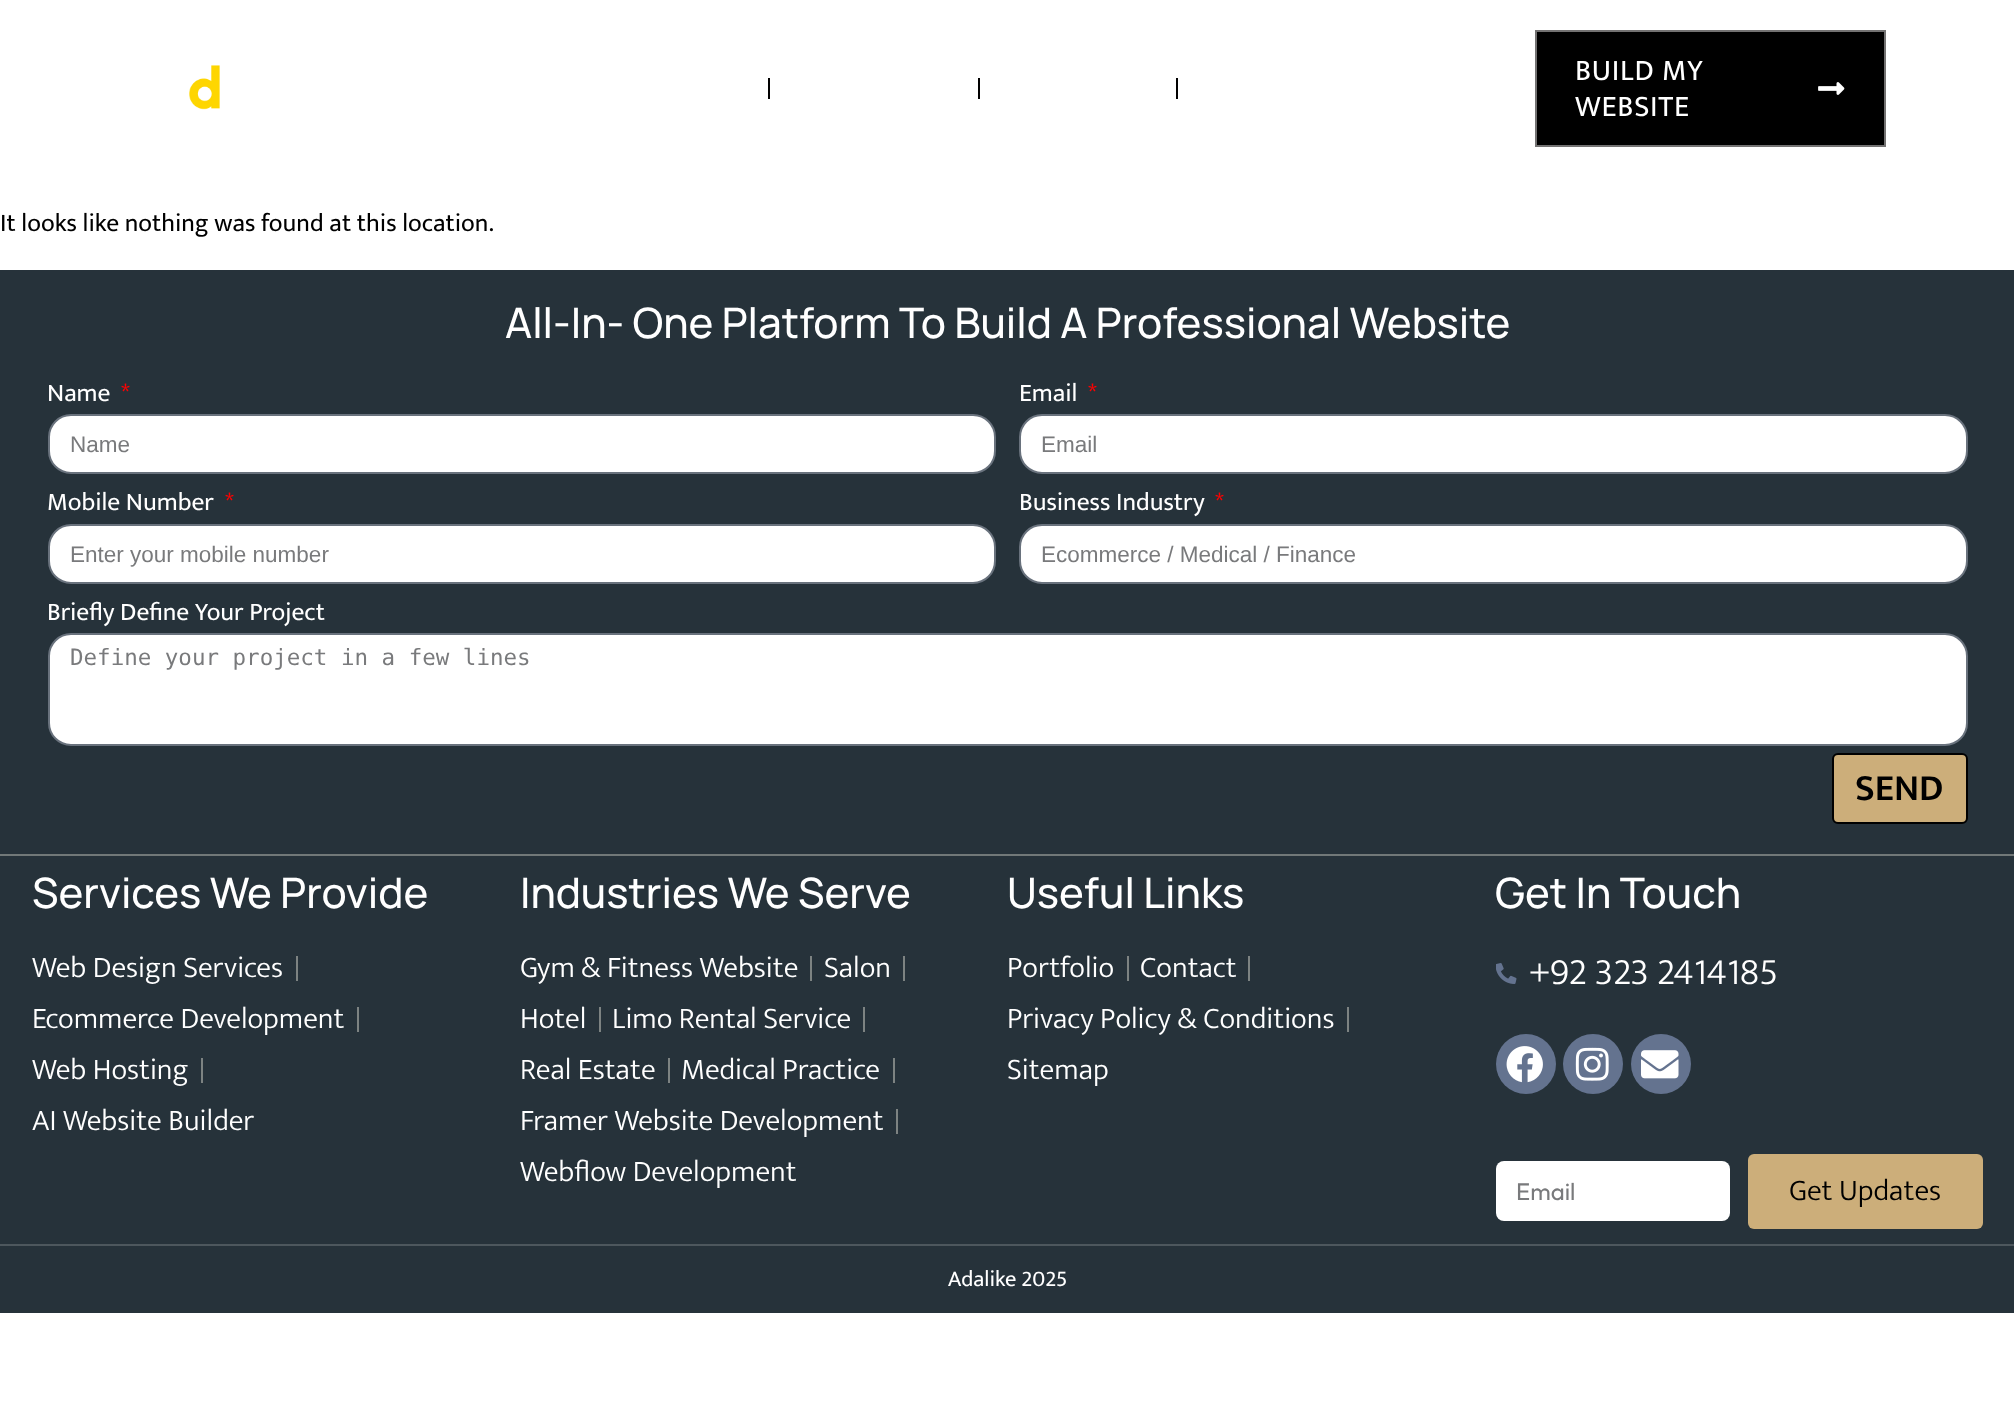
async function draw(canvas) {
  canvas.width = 2014;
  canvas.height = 1415;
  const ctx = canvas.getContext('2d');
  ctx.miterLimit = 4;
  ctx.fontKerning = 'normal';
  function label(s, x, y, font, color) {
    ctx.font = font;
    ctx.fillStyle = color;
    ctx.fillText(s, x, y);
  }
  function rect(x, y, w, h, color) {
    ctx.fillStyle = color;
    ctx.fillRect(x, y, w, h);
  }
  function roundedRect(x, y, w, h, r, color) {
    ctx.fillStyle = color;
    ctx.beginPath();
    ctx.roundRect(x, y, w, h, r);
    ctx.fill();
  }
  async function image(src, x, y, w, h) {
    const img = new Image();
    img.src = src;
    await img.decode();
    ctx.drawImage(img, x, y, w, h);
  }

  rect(0, 0, 2014, 1415, '#fff');
  await image('assets/img1.png', 189, 65, 31, 45);
  rect(768, 78, 2, 21, '#020101');
  rect(978, 78, 2, 21, '#020101');
  rect(1176, 78, 2, 21, '#020101');
  ctx.fillStyle = '#000';
  ctx.beginPath();
  ctx.rect(1536, 31, 349, 115);
  ctx.fill();
  ctx.strokeStyle = '#737272';
  ctx.lineWidth = 2;
  ctx.stroke();
  ctx.letterSpacing = '0.75px';
  label('BUILD MY', 1575, 80, '30px Mukta', '#fff');
  label('WEBSITE', 1575, 116, '30px Mukta', '#fff');
  await image('assets/img2.png', 1818, 82, 27, 13);
  ctx.letterSpacing = '0px';
  label('It looks like nothing was found at this location.', 0, 231, '25.5px Mukta', '#000');
  rect(0, 270, 2014, 584, '#26323a');
  label('All-In- One Platform To Build A Professional Website', 505, 338, '500 42px Manrope', '#fff');
  label('Name', 47, 401, '25.5px Mukta', '#fff');
  label('*', 121, 401, '25.5px Mukta', '#f00');
  ctx.fillStyle = '#fff';
  ctx.beginPath();
  ctx.roundRect(49, 415, 946, 58, 22);
  ctx.fill();
  ctx.strokeStyle = '#69727d';
  ctx.stroke();
  label('Name', 70, 452, '22.5px Liberation Sans', '#797a7c');
  label('Email', 1019, 401, '25.5px Mukta', '#fff');
  label('*', 1088, 401, '25.5px Mukta', '#f00');
  ctx.fillStyle = '#fff';
  ctx.beginPath();
  ctx.roundRect(1020, 415, 947, 58, 22);
  ctx.fill();
  ctx.stroke();
  label('Email', 1041, 452, '22.5px Liberation Sans', '#797a7c');
  label('Mobile Number', 47, 510, '25.5px Mukta', '#fff');
  label('*', 225, 510, '25.5px Mukta', '#f00');
  ctx.fillStyle = '#fff';
  ctx.beginPath();
  ctx.roundRect(49, 525, 946, 58, 22);
  ctx.fill();
  ctx.stroke();
  label('Enter your mobile number', 70, 562, '22.5px Liberation Sans', '#797a7c');
  label('Business Industry', 1019, 510, '25.5px Mukta', '#fff');
  label('*', 1215, 510, '25.5px Mukta', '#f00');
  ctx.fillStyle = '#fff';
  ctx.beginPath();
  ctx.roundRect(1020, 525, 947, 58, 22);
  ctx.fill();
  ctx.stroke();
  label('Ecommerce / Medical / Finance', 1041, 562, '22.5px Liberation Sans', '#797a7c');
  label('Briefly Define Your Project', 47, 620, '25.5px Mukta', '#fff');
  ctx.beginPath();
  ctx.roundRect(49, 634, 1918, 111, 22);
  ctx.fill();
  ctx.stroke();
  label('Define your project in a few lines', 70, 665, '22.5px DejaVu Sans Mono', '#797a7c');
  ctx.fillStyle = '#ccae7a';
  ctx.beginPath();
  ctx.roundRect(1833, 754, 134, 69, 5);
  ctx.fill();
  ctx.strokeStyle = '#000';
  ctx.stroke();
  label('SEND', 1855, 800, '600 37.5px Mukta', '#000');
  rect(0, 856, 2014, 388, '#26323a');
  rect(0, 854, 2014, 2, '#717878');
  label('Services We Provide', 32, 908, '500 42px Manrope', '#fff');
  label('Web Design Services', 32, 977, '300 30px Mukta', '#fff');
  rect(296, 956, 2, 25, '#7d8382');
  label('Ecommerce Development', 32, 1028, '300 30px Mukta', '#fff');
  rect(357, 1007, 2, 25, '#7d8382');
  label('Web Hosting', 32, 1079, '300 30px Mukta', '#fff');
  rect(201, 1058, 2, 25, '#7d8382');
  label('AI Website Builder', 32, 1130, '300 30px Mukta', '#fff');
  label('Industries We Serve', 520, 908, '500 42px Manrope', '#fff');
  label('Gym & Fitness Website', 520, 977, '300 30px Mukta', '#fff');
  rect(810, 956, 2, 25, '#7d8382');
  label('Salon', 824, 977, '300 30px Mukta', '#fff');
  rect(903, 956, 2, 25, '#7d8382');
  label('Hotel', 520, 1028, '300 30px Mukta', '#fff');
  rect(599, 1007, 2, 25, '#7d8382');
  label('Limo Rental Service', 612, 1028, '300 30px Mukta', '#fff');
  rect(863, 1007, 2, 25, '#7d8382');
  label('Real Estate', 520, 1079, '300 30px Mukta', '#fff');
  rect(668, 1058, 2, 25, '#7d8382');
  label('Medical Practice', 681, 1079, '300 30px Mukta', '#fff');
  rect(893, 1058, 2, 25, '#7d8382');
  label('Framer Website Development', 520, 1130, '300 30px Mukta', '#fff');
  rect(896, 1109, 2, 25, '#7d8382');
  label('Webflow Development', 520, 1181, '300 30px Mukta', '#fff');
  label('Useful Links', 1007, 908, '500 42px Manrope', '#fff');
  label('Portfolio', 1007, 977, '300 30px Mukta', '#fff');
  rect(1127, 956, 2, 25, '#7d8382');
  label('Contact', 1140, 977, '300 30px Mukta', '#fff');
  rect(1248, 956, 2, 25, '#7d8382');
  label('Privacy Policy & Conditions', 1007, 1028, '300 30px Mukta', '#fff');
  rect(1347, 1007, 2, 25, '#7d8382');
  label('Sitemap', 1007, 1079, '300 30px Mukta', '#fff');
  label('Get In Touch', 1495, 908, '500 42px Manrope', '#fff');
  await image('assets/img3.png', 1496, 963, 21, 21);
  label('+92 323 2414185', 1529, 984, '300 37.5px Mukta', '#fff');
  ctx.fillStyle = '#64738f';
  ctx.beginPath();
  ctx.arc(1526, 1064, 30, 0, 2 * Math.PI);
  ctx.fill();
  await image('assets/img4.png', 1506, 1046, 37, 37);
  ctx.beginPath();
  ctx.arc(1593, 1064, 30, 0, 2 * Math.PI);
  ctx.fill();
  await image('assets/img5.png', 1575, 1047, 34, 34);
  ctx.beginPath();
  ctx.arc(1661, 1064, 30, 0, 2 * Math.PI);
  ctx.fill();
  await image('assets/img6.png', 1641, 1050, 38, 29);
  roundedRect(1496, 1161, 234, 60, 8, '#fff');
  label('Email', 1516, 1200, '24px Outfit', '#797a7c');
  roundedRect(1748, 1154, 235, 75, 6, '#ccae7a');
  label('Get Updates', 1789, 1200, '300 30px Mukta', '#000');
  rect(0, 1246, 2014, 67, '#26323a');
  rect(0, 1244, 2014, 2, '#4d575d');
  label('Adalike 2025', 948, 1286, '22.5px Mukta', '#fff');
}

draw(document.querySelector('canvas'));
